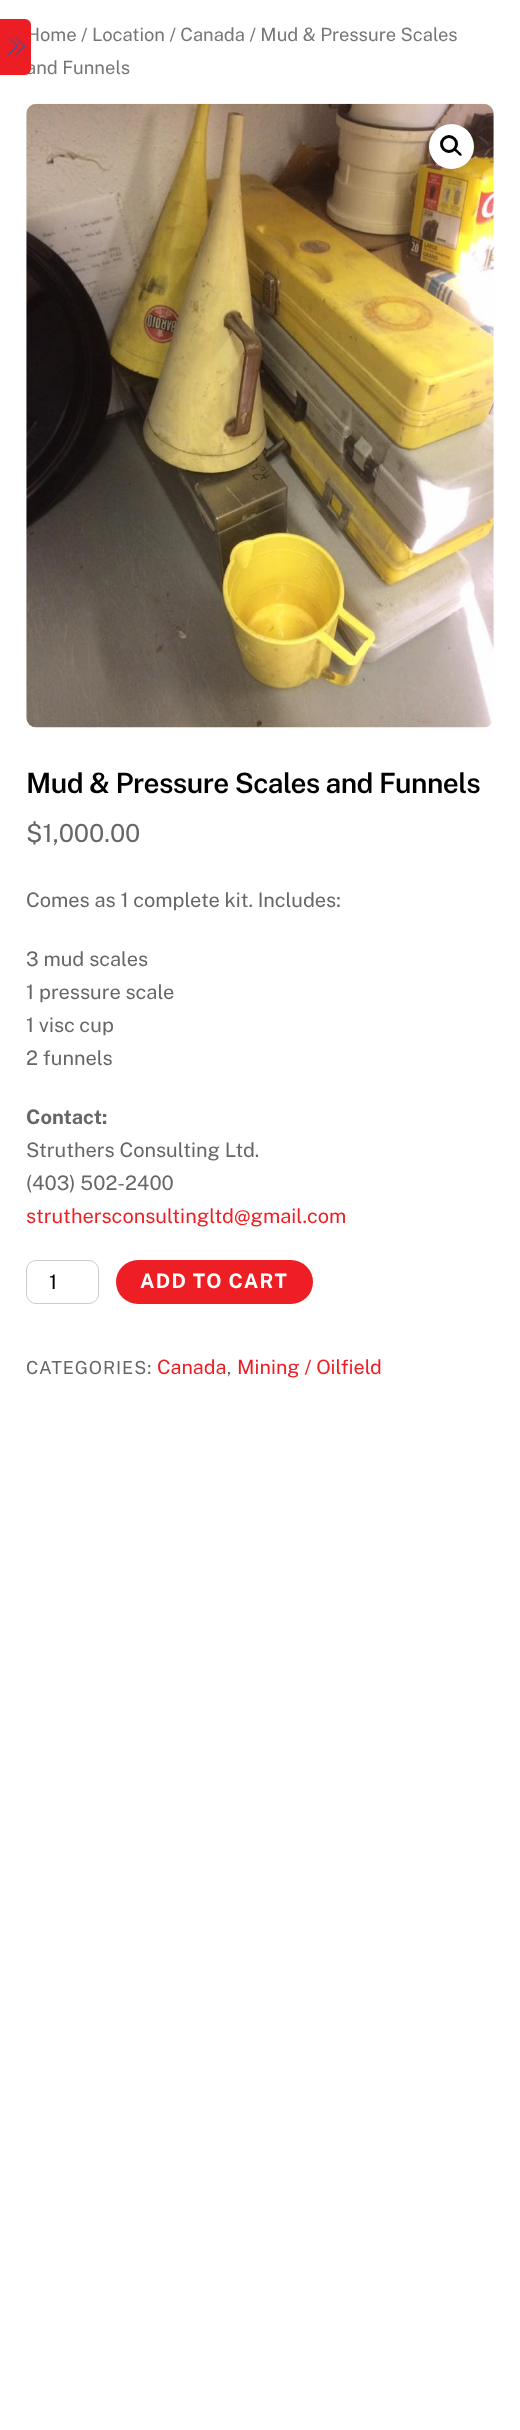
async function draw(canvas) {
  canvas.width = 520;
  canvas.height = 2430;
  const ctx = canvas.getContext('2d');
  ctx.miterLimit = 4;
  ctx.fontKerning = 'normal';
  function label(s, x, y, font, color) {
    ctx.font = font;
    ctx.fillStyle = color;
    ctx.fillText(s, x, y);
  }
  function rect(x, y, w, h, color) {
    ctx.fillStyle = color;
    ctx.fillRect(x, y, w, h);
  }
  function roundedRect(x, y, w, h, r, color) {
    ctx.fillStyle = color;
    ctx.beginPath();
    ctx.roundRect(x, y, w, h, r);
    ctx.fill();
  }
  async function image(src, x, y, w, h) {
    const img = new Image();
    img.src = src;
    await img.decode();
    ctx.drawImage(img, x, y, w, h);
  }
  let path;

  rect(0, 0, 520, 2430, '#fff');
  label('Home / Location / Canada / Mud & Pressure Scales', 26, 41, '18.4px Public Sans', '#767676');
  label('and Funnels', 26, 74, '18.4px Public Sans', '#767676');
  ctx.fillStyle = '#ec1e24';
  ctx.beginPath();
  ctx.roundRect(0, 19, 31, 56, [0, 6, 6, 0]);
  ctx.fill();
  ctx.save();
  ctx.beginPath();
  ctx.rect(3, 38, 27, 22);
  ctx.clip();
  ctx.fillStyle = '#3d5399';
  path = new Path2D('M12.5 33L25.5 46L24.5 46.5L12 34Z');
  ctx.fill(path);
  ctx.restore();
  ctx.fillStyle = '#3d5399';
  path = new Path2D('M24.5 45L25.5 46L16 55L15 54.5Z');
  ctx.fill(path);
  ctx.save();
  ctx.beginPath();
  ctx.rect(3, 38, 27, 22);
  ctx.clip();
  path = new Path2D('M5 33L18 46L17 46.5L4.5 34Z');
  ctx.fill(path);
  ctx.restore();
  path = new Path2D('M17 45L18 46L8.5 55L7.5 54.5Z');
  ctx.fill(path);
  await image('assets/img1.png', 26, 103, 468, 625);
  ctx.fillStyle = '#fff';
  ctx.beginPath();
  ctx.arc(451.5, 146.5, 22.5, 0, 2 * Math.PI);
  ctx.fill();
  ctx.beginPath();
  ctx.arc(449, 144, 7.5, 0, 2 * Math.PI);
  ctx.strokeStyle = '#000';
  ctx.lineWidth = 3;
  ctx.stroke();
  ctx.fillStyle = '#000';
  path = new Path2D('M454 148.5C455.5 147 458 150.5 458.5 151C459.5 152 462.5 154 461.5 155.5C460 157 457.5 153.5 457 153C456 152 453 150 454 148.5Z');
  ctx.fill(path);
  ctx.letterSpacing = '-0.55px';
  label('Mud & Pressure Scales and Funnels', 26, 793, '600 28px Public Sans', '#000');
  ctx.letterSpacing = '0px';
  label('$1,000.00', 26, 842, '25px Public Sans', '#666');
  label('Comes as 1 complete kit. Includes:', 26, 907, '20px Public Sans', '#666');
  label('3 mud scales', 26, 966, '20px Public Sans', '#666');
  label('1 pressure scale', 26, 999, '20px Public Sans', '#666');
  label('1 visc cup', 26, 1032, '20px Public Sans', '#666');
  label('2 funnels', 26, 1065, '20px Public Sans', '#666');
  label('Contact:', 26, 1124, 'bold 20px Public Sans', '#666');
  label('Struthers Consulting Ltd.', 26, 1157, '20px Public Sans', '#666');
  label('(403) 502-2400', 26, 1190, '20px Public Sans', '#666');
  label('struthersconsultingltd@gmail.com', 26, 1223, '20px Public Sans', '#ed1e24');
  ctx.beginPath();
  ctx.roundRect(26.5, 1260.5, 72, 43, 9.5);
  ctx.strokeStyle = '#ccc';
  ctx.lineWidth = 1;
  ctx.stroke();
  label('1', 49, 1289, '20px Public Sans', '#000');
  roundedRect(116, 1260, 197, 44, 22, '#ed1e24');
  ctx.letterSpacing = '1.25px';
  label('ADD TO CART', 140, 1288, 'bold 20px Public Sans', '#fff');
  ctx.letterSpacing = '0.9px';
  label('CATEGORIES:', 26, 1374, '18px Public Sans', '#666');
  ctx.letterSpacing = '0px';
  label('Canada', 157, 1374, '19.75px Public Sans', '#ed1e24');
  ctx.letterSpacing = '0.9px';
  label(',', 227, 1374, '18px Public Sans', '#666');
  ctx.letterSpacing = '0px';
  label('Mining / Oilfield', 237, 1374, '19.75px Public Sans', '#ed1e24');
}

draw(document.querySelector('canvas'));
